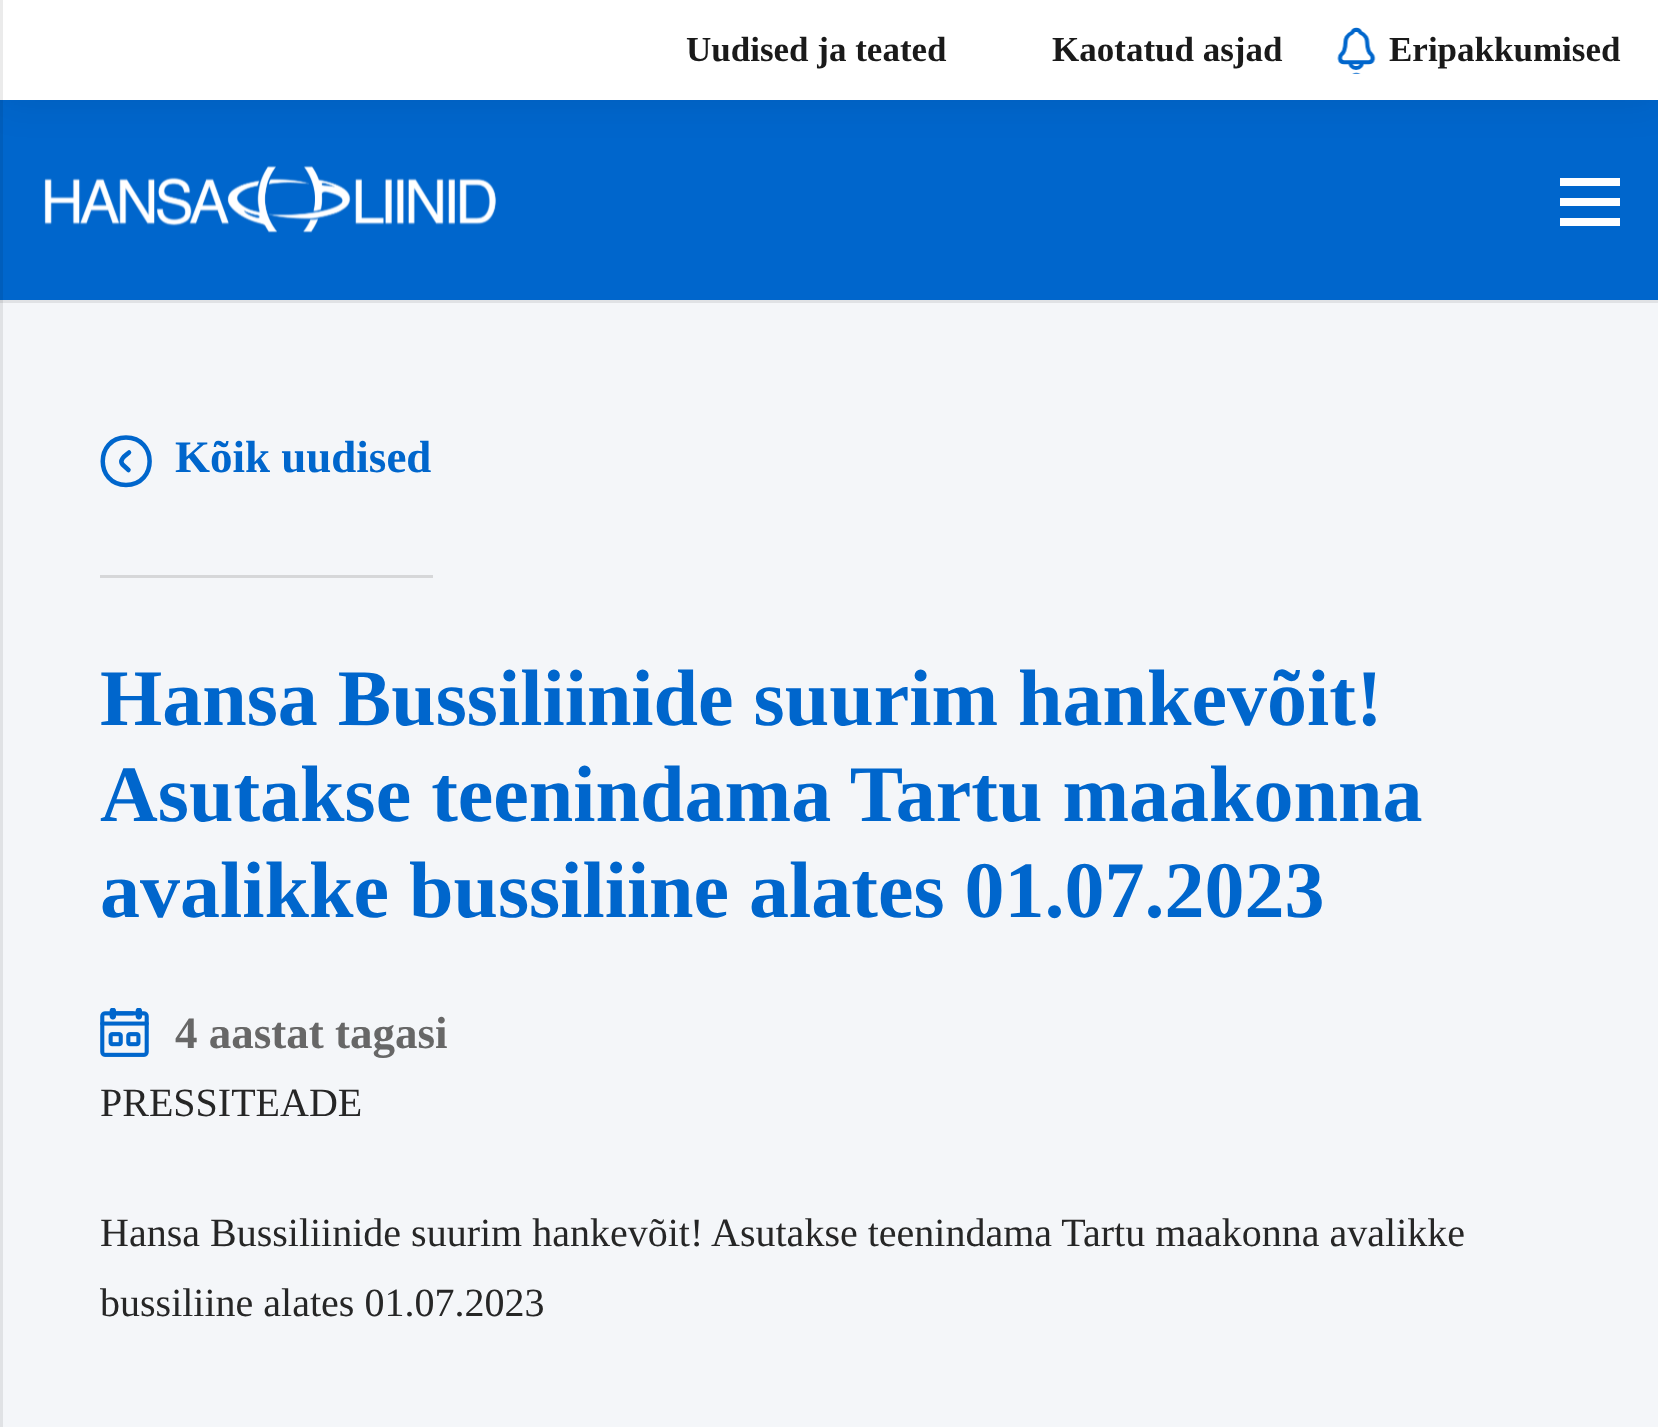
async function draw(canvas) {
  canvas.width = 1658;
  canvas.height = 1427;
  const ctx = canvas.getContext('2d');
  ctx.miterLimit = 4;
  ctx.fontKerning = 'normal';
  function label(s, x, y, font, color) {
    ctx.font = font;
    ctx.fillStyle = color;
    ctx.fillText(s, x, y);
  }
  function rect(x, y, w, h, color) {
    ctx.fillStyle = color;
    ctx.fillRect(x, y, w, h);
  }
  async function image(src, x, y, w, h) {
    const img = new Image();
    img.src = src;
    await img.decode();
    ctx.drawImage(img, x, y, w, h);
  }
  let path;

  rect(0, 0, 1658, 1427, '#f4f6f9');
  rect(0, 300, 1658, 3, '#e0e2e5');
  rect(0, 100, 1658, 200, '#06c');
  ctx.fillStyle = '#00000014';
  ctx.filter = 'blur(19px)';
  ctx.beginPath();
  ctx.rect(0, 3, 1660, 100);
  ctx.fill();
  ctx.filter = 'none';
  rect(0, 0, 1658, 100, '#fff');
  ctx.fillStyle = '#00000014';
  path = new Path2D('M-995 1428H3V0H0V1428Z');
  ctx.fill(path);
  rect(1560, 198, 60, 8, '#fff');
  rect(1560, 178, 60, 8, '#fff');
  rect(1560, 218, 60, 8, '#fff');
  await image('assets/img1.png', 44, 165, 453, 68);
  label('Uudised ja teated', 686, 61, 'bold 35px Liberation Serif', '#1a1a1a');
  label('Kaotatud asjad', 1052, 61, 'bold 35px Liberation Serif', '#1a1a1a');
  await image('assets/img2.png', 1337, 27, 39, 47);
  label('Eripakkumised', 1389, 61, 'bold 35px Liberation Serif', '#1a1a1a');
  rect(100, 575, 333, 3, '#d6d7d9');
  path = new Path2D('M126 485C95 485 95 437.5 126 437.5C157.5 437.5 157.5 485 126 485Z');
  ctx.strokeStyle = '#06c';
  ctx.lineWidth = 4.5;
  ctx.stroke(path);
  path = new Path2D('M128.5 470L122.5 464.5C118.5 459.5 126 455 129 452.5');
  ctx.lineCap = 'round';
  ctx.lineJoin = 'round';
  ctx.stroke(path);
  label('Kõik uudised', 175, 472, 'bold 45px Liberation Serif', '#06c');
  label('Hansa Bussiliinide suurim hankevõit!', 100, 725, 'bold 80px Liberation Serif', '#06c');
  label('Asutakse teenindama Tartu maakonna', 100, 821, 'bold 80px Liberation Serif', '#06c');
  label('avalikke bussiliine alates 01.07.2023', 100, 917, 'bold 80px Liberation Serif', '#06c');
  await image('assets/img3.png', 100, 1008, 49, 49);
  label('4 aastat tagasi', 175, 1048, 'bold 45px Liberation Serif', '#676767');
  label('PRESSITEADE', 100, 1116, '40px Liberation Serif', '#262626');
  label('Hansa Bussiliinide suurim hankevõit! Asutakse teenindama Tartu maakonna avalikke', 100, 1246, '40px Liberation Serif', '#262626');
  label('bussiliine alates 01.07.2023', 100, 1316, '40px Liberation Serif', '#262626');
}

draw(document.querySelector('canvas'));
